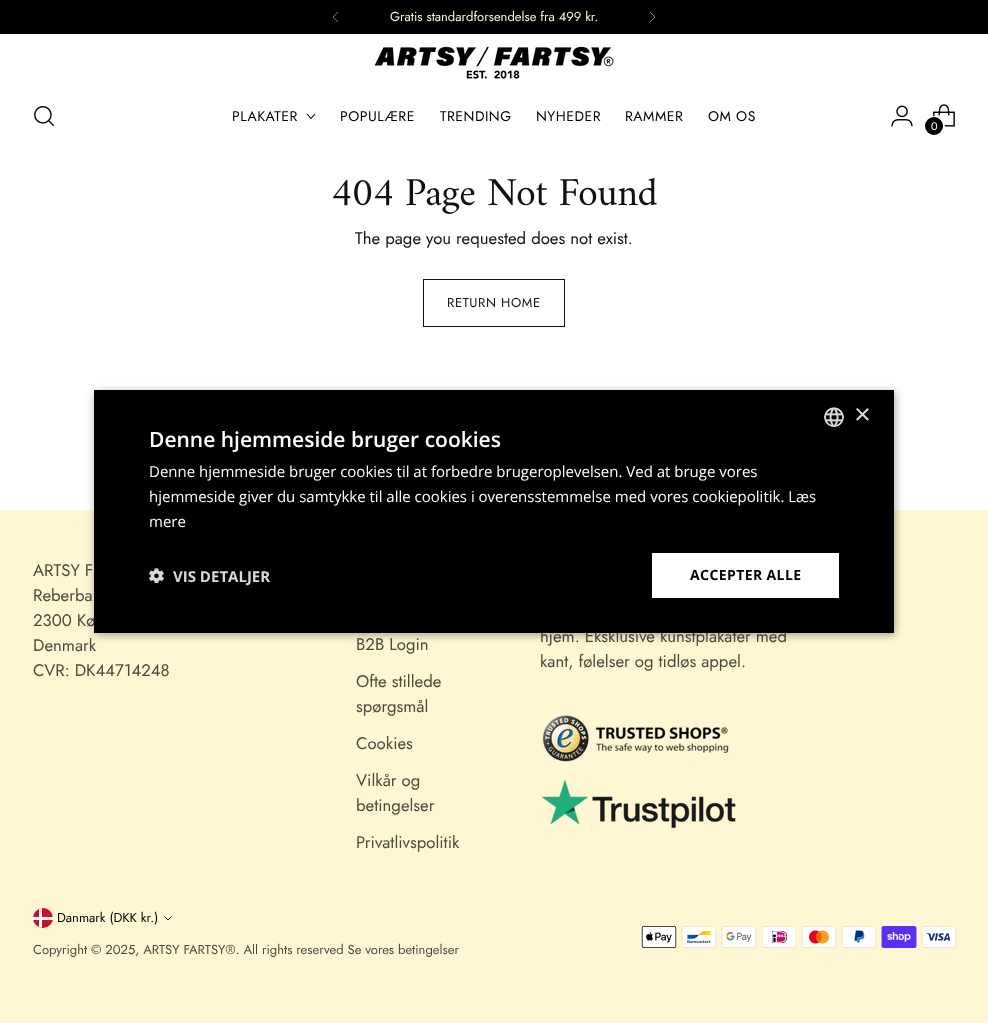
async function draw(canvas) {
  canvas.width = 988;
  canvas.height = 1023;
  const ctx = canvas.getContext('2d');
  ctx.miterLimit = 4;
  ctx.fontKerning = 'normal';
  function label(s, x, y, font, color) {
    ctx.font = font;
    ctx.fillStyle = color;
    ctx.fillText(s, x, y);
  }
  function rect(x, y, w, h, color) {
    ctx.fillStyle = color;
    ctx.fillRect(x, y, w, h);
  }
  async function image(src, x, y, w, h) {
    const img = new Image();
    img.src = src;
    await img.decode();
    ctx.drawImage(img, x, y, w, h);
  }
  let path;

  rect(0, 0, 988, 1023, '#fff');
  rect(0, 0, 988, 34, '#000');
  label('Gratis standardforsendelse fra 499 kr.', 390, 21, '13px Jost', '#fff6d3');
  path = new Path2D('M338 12L333 17L338 22');
  ctx.strokeStyle = '#807b6a';
  ctx.stroke(path);
  path = new Path2D('M650 22L655 17L650 12');
  ctx.stroke(path);
  await image('assets/img1.png', 374, 46, 240, 33);
  await image('assets/img2.png', 34, 106, 21, 21);
  ctx.letterSpacing = '0.5px';
  label('PLAKATER', 232, 121, '14px Jost', '#000');
  path = new Path2D('M307 114L311 118.5L315 114');
  ctx.strokeStyle = '#000';
  ctx.lineWidth = 1.1;
  ctx.stroke(path);
  label('POPULÆRE', 340, 121, '14px Jost', '#000');
  label('TRENDING', 440, 121, '14px Jost', '#000');
  label('NYHEDER', 536, 121, '14px Jost', '#000');
  label('RAMMER', 625, 121, '14px Jost', '#000');
  label('OM OS', 708, 121, '14px Jost', '#000');
  await image('assets/img3.png', 891, 105, 22, 22);
  await image('assets/img4.png', 933, 104, 22, 23);
  ctx.beginPath();
  ctx.arc(934.5, 126.5, 9.5, 0, 2 * Math.PI);
  ctx.strokeStyle = '#fff';
  ctx.lineWidth = 2;
  ctx.stroke();
  ctx.beginPath();
  ctx.arc(934, 126, 9, 0, 2 * Math.PI);
  ctx.fill();
  ctx.letterSpacing = '0px';
  label('0', 931, 130, '11px Jost', '#fff');
  ctx.letterSpacing = '-0.4px';
  label('404 Page Not Found', 331, 205, '40px Amiri', '#111');
  ctx.letterSpacing = '0px';
  label('The page you requested does not exist.', 355, 244, '16.75px Jost', '#111');
  ctx.strokeStyle = '#111';
  ctx.lineWidth = 1;
  ctx.strokeRect(423.5, 279.5, 141, 47);
  ctx.letterSpacing = '0.6px';
  label('RETURN HOME', 447, 307, '13px Jost', '#111');
  rect(0, 510, 988, 513, '#fff6d3');
  ctx.letterSpacing = '0px';
  label('ARTSY F', 33, 576, '16.75px Jost', '#4d4a3f');
  label('Reberba', 33, 601, '16.75px Jost', '#4d4a3f');
  label('2300 Kø', 33, 626, '16.75px Jost', '#4d4a3f');
  label('Denmark', 33, 651, '16.75px Jost', '#4d4a3f');
  label('CVR: DK44714248', 33, 676, '16.75px Jost', '#4d4a3f');
  label('B2B Login', 356, 650, '16.75px Jost', '#4d4a3f');
  label('Ofte stillede', 356, 687, '16.75px Jost', '#4d4a3f');
  label('spørgsmål', 356, 712, '16.75px Jost', '#4d4a3f');
  label('Cookies', 356, 749, '16.75px Jost', '#4d4a3f');
  label('Vilkår og', 356, 786, '16.75px Jost', '#4d4a3f');
  label('betingelser', 356, 811, '16.75px Jost', '#4d4a3f');
  label('Privatlivspolitik', 356, 848, '16.75px Jost', '#4d4a3f');
  label('hjem. Eksklusive kunstplakater med', 540, 642, '16.75px Jost', '#4d4a3f');
  label('kant, følelser og tidløs appel.', 540, 667, '16.75px Jost', '#4d4a3f');
  await image('assets/img5.png', 541, 715, 195, 114);
  ctx.fillStyle = '#c8102e';
  ctx.beginPath();
  ctx.arc(43, 918, 10, 0, 2 * Math.PI);
  ctx.fill();
  ctx.save();
  ctx.beginPath();
  ctx.roundRect(33, 908, 20, 20, 10);
  ctx.clip();
  rect(39, 908, 3, 20, '#fff');
  ctx.restore();
  rect(33, 917, 20, 3, '#fff');
  label('Danmark (DKK kr.)', 57, 922, '13px Jost', '#000');
  path = new Path2D('M164.5 916.5L168 920L171.5 916.5');
  ctx.strokeStyle = '#000';
  ctx.lineWidth = 0.9;
  ctx.stroke(path);
  label('Copyright © 2025, ARTSY FARTSY®. All rights reserved Se vores betingelser', 33, 954, '13px Jost', '#4d4a3f');
  await image('assets/img6.png', 641, 926, 36, 22);
  await image('assets/img7.png', 681, 926, 36, 22);
  await image('assets/img8.png', 721, 926, 36, 22);
  await image('assets/img9.png', 762, 926, 34, 22);
  await image('assets/img10.png', 801, 926, 36, 22);
  await image('assets/img11.png', 841, 926, 36, 22);
  await image('assets/img12.png', 881, 926, 36, 22);
  await image('assets/img13.png', 921, 926, 36, 22);
  ctx.fillStyle = '#00000059';
  ctx.filter = 'blur(4px)';
  ctx.beginPath();
  ctx.rect(95, 392, 800, 243);
  ctx.fill();
  ctx.filter = 'none';
  rect(94, 390, 800, 243, '#000');
  await image('assets/img14.png', 824, 407, 20, 20);
  label('×', 854, 424, '29px Liberation Sans', '#d9d9d9');
  label('Denne hjemmeside bruger cookies', 149, 447, '600 21px Open Sans', '#fff');
  label('Denne hjemmeside bruger cookies til at forbedre brugeroplevelsen. Ved at bruge vores', 149, 477, '15px Open Sans', '#fff');
  label('hjemmeside giver du samtykke til alle cookies i overensstemmelse med vores cookiepolitik. Læs', 149, 502, '15px Open Sans', '#fff');
  label('mere', 149, 527, '15px Open Sans', '#fff');
  await image('assets/img15.png', 149, 568, 15, 15);
  label('VIS DETALJER', 173, 582, 'bold 15px Open Sans', '#d9d9d9');
  rect(652, 553, 187, 45, '#fff');
  ctx.letterSpacing = '0.4px';
  label('ACCEPTER ALLE', 690, 580, 'bold 14px Open Sans', '#000');
}

draw(document.querySelector('canvas'));
